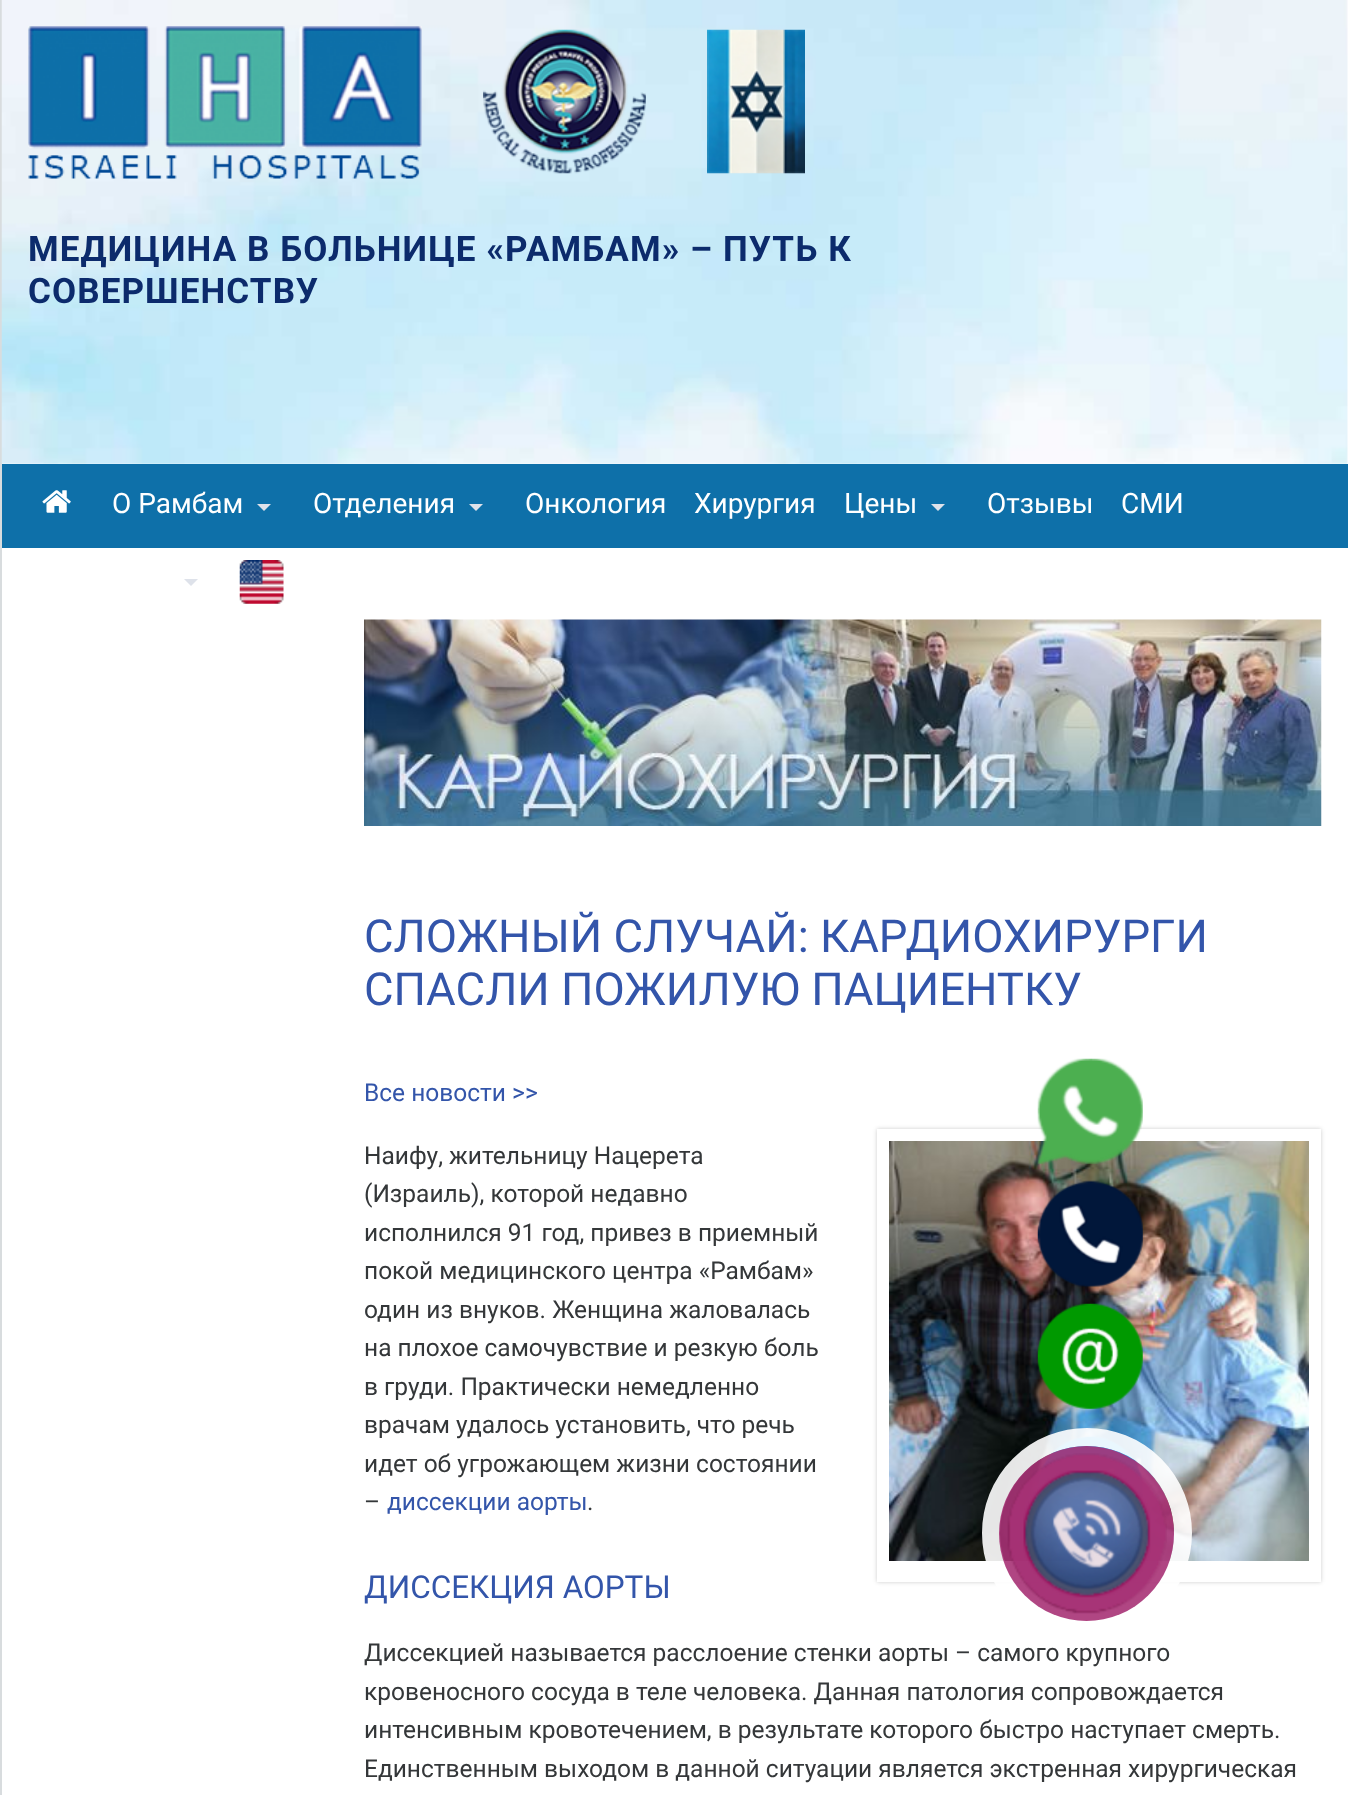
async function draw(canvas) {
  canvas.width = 1348;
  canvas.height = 1795;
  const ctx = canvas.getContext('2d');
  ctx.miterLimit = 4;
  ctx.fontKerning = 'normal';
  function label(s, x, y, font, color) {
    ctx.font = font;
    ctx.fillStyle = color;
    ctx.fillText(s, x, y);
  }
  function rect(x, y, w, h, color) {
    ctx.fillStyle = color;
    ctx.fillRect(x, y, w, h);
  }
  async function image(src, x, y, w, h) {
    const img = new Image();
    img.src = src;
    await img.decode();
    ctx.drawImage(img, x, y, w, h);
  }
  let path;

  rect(0, 0, 1348, 1795, '#fff');
  rect(0, 0, 2, 1795, '#d8dcde');
  await image('assets/img1.png', 1, 0, 1347, 464);
  await image('assets/img2.png', 28, 26, 394, 153);
  await image('assets/img3.png', 483, 29, 163, 145);
  await image('assets/img4.png', 707, 29, 98, 145);
  ctx.letterSpacing = '1.1px';
  label('МЕДИЦИНА В БОЛЬНИЦЕ «РАМБАМ» – ПУТЬ К', 28, 261, 'bold 35px Roboto', '#0c2b6c');
  label('СОВЕРШЕНСТВУ', 28, 303, 'bold 35px Roboto', '#0c2b6c');
  rect(2, 464, 1346, 84, '#0e70a9');
  await image('assets/img5.png', 42, 490, 29, 23);
  ctx.letterSpacing = '0px';
  label('О Рамбам', 112, 513, '28px Roboto', '#fff');
  ctx.fillStyle = '#dee2ea';
  path = new Path2D('M257 504H271L264 511Z');
  ctx.fill(path);
  label('Отделения', 313, 513, '28px Roboto', '#fff');
  ctx.fillStyle = '#dee2ea';
  path = new Path2D('M469 504H483L476 511Z');
  ctx.fill(path);
  label('Онкология', 525, 513, '28px Roboto', '#fff');
  label('Хирургия', 694, 513, '28px Roboto', '#fff');
  label('Цены', 844, 513, '28px Roboto', '#fff');
  ctx.fillStyle = '#dee2ea';
  path = new Path2D('M931 504H945L938 511Z');
  ctx.fill(path);
  label('Отзывы', 987, 513, '28px Roboto', '#fff');
  label('СМИ', 1121, 513, '28px Roboto', '#fff');
  ctx.fillStyle = '#dee2ea';
  path = new Path2D('M184 579H198L191 586Z');
  ctx.fill(path);
  await image('assets/img6.png', 239, 560, 45, 44);
  await image('assets/img7.png', 364, 619, 958, 207);
  label('СЛОЖНЫЙ СЛУЧАЙ: КАРДИОХИРУРГИ', 364, 952, '45.5px Roboto', '#35a');
  label('СПАСЛИ ПОЖИЛУЮ ПАЦИЕНТКУ', 364, 1005, '45.5px Roboto', '#35a');
  label('Все новости >>', 364, 1101, '24.5px Roboto', '#35a');
  label('Наифу, жительницу Нацерета', 364, 1164, '24.5px Roboto', '#343739');
  label('(Израиль), которой недавно', 364, 1202, '24.5px Roboto', '#343739');
  label('исполнился 91 год, привез в приемный', 364, 1241, '24.5px Roboto', '#343739');
  label('покой медицинского центра «Рамбам»', 364, 1279, '24.5px Roboto', '#343739');
  label('один из внуков. Женщина жаловалась', 364, 1318, '24.5px Roboto', '#343739');
  label('на плохое самочувствие и резкую боль', 364, 1356, '24.5px Roboto', '#343739');
  label('в груди. Практически немедленно', 364, 1395, '24.5px Roboto', '#343739');
  label('врачам удалось установить, что речь', 364, 1433, '24.5px Roboto', '#343739');
  label('идет об угрожающем жизни состоянии', 364, 1472, '24.5px Roboto', '#343739');
  label('–', 364, 1510, '24.5px Roboto', '#343739');
  label('диссекции аорты', 387, 1510, '24.5px Roboto', '#35a');
  label('.', 587, 1510, '24.5px Roboto', '#343739');
  ctx.save();
  path = new Path2D('M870 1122H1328V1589H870ZM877 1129H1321V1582H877Z');
  ctx.clip(path, 'evenodd');
  ctx.fillStyle = '#00000033';
  ctx.filter = 'blur(2px)';
  ctx.beginPath();
  ctx.rect(877, 1129, 444, 453);
  ctx.fill();
  ctx.filter = 'none';
  ctx.restore();
  await image('assets/img8.png', 889, 1141, 420, 420);
  label('ДИССЕКЦИЯ АОРТЫ', 364, 1598, '31.5px Roboto', '#35a');
  label('Диссекцией называется расслоение стенки аорты – самого крупного', 364, 1661, '24.5px Roboto', '#343739');
  label('кровеносного сосуда в теле человека. Данная патология сопровождается', 364, 1700, '24.5px Roboto', '#343739');
  label('интенсивным кровотечением, в результате которого быстро наступает смерть.', 364, 1738, '24.5px Roboto', '#343739');
  label('Единственным выходом в данной ситуации является экстренная хирургическая', 364, 1777, '24.5px Roboto', '#343739');
  await image('assets/img9.png', 1037, 1058, 106, 106);
  await image('assets/img10.png', 1037, 1180, 106, 107);
  await image('assets/img11.png', 1037, 1303, 106, 106);
  await image('assets/img12.png', 1037, 1436, 106, 106);
  ctx.beginPath();
  ctx.arc(1087, 1533, 96, 0, 2 * Math.PI);
  ctx.strokeStyle = '#ffffffe6';
  ctx.lineWidth = 18;
  ctx.stroke();
  ctx.fillStyle = '#a73276e6';
  ctx.beginPath();
  ctx.arc(1086.5, 1533.5, 87.5, 0, 2 * Math.PI);
  ctx.fill();
  await image('assets/img13.png', 1007, 1453, 160, 161);
}

draw(document.querySelector('canvas'));
